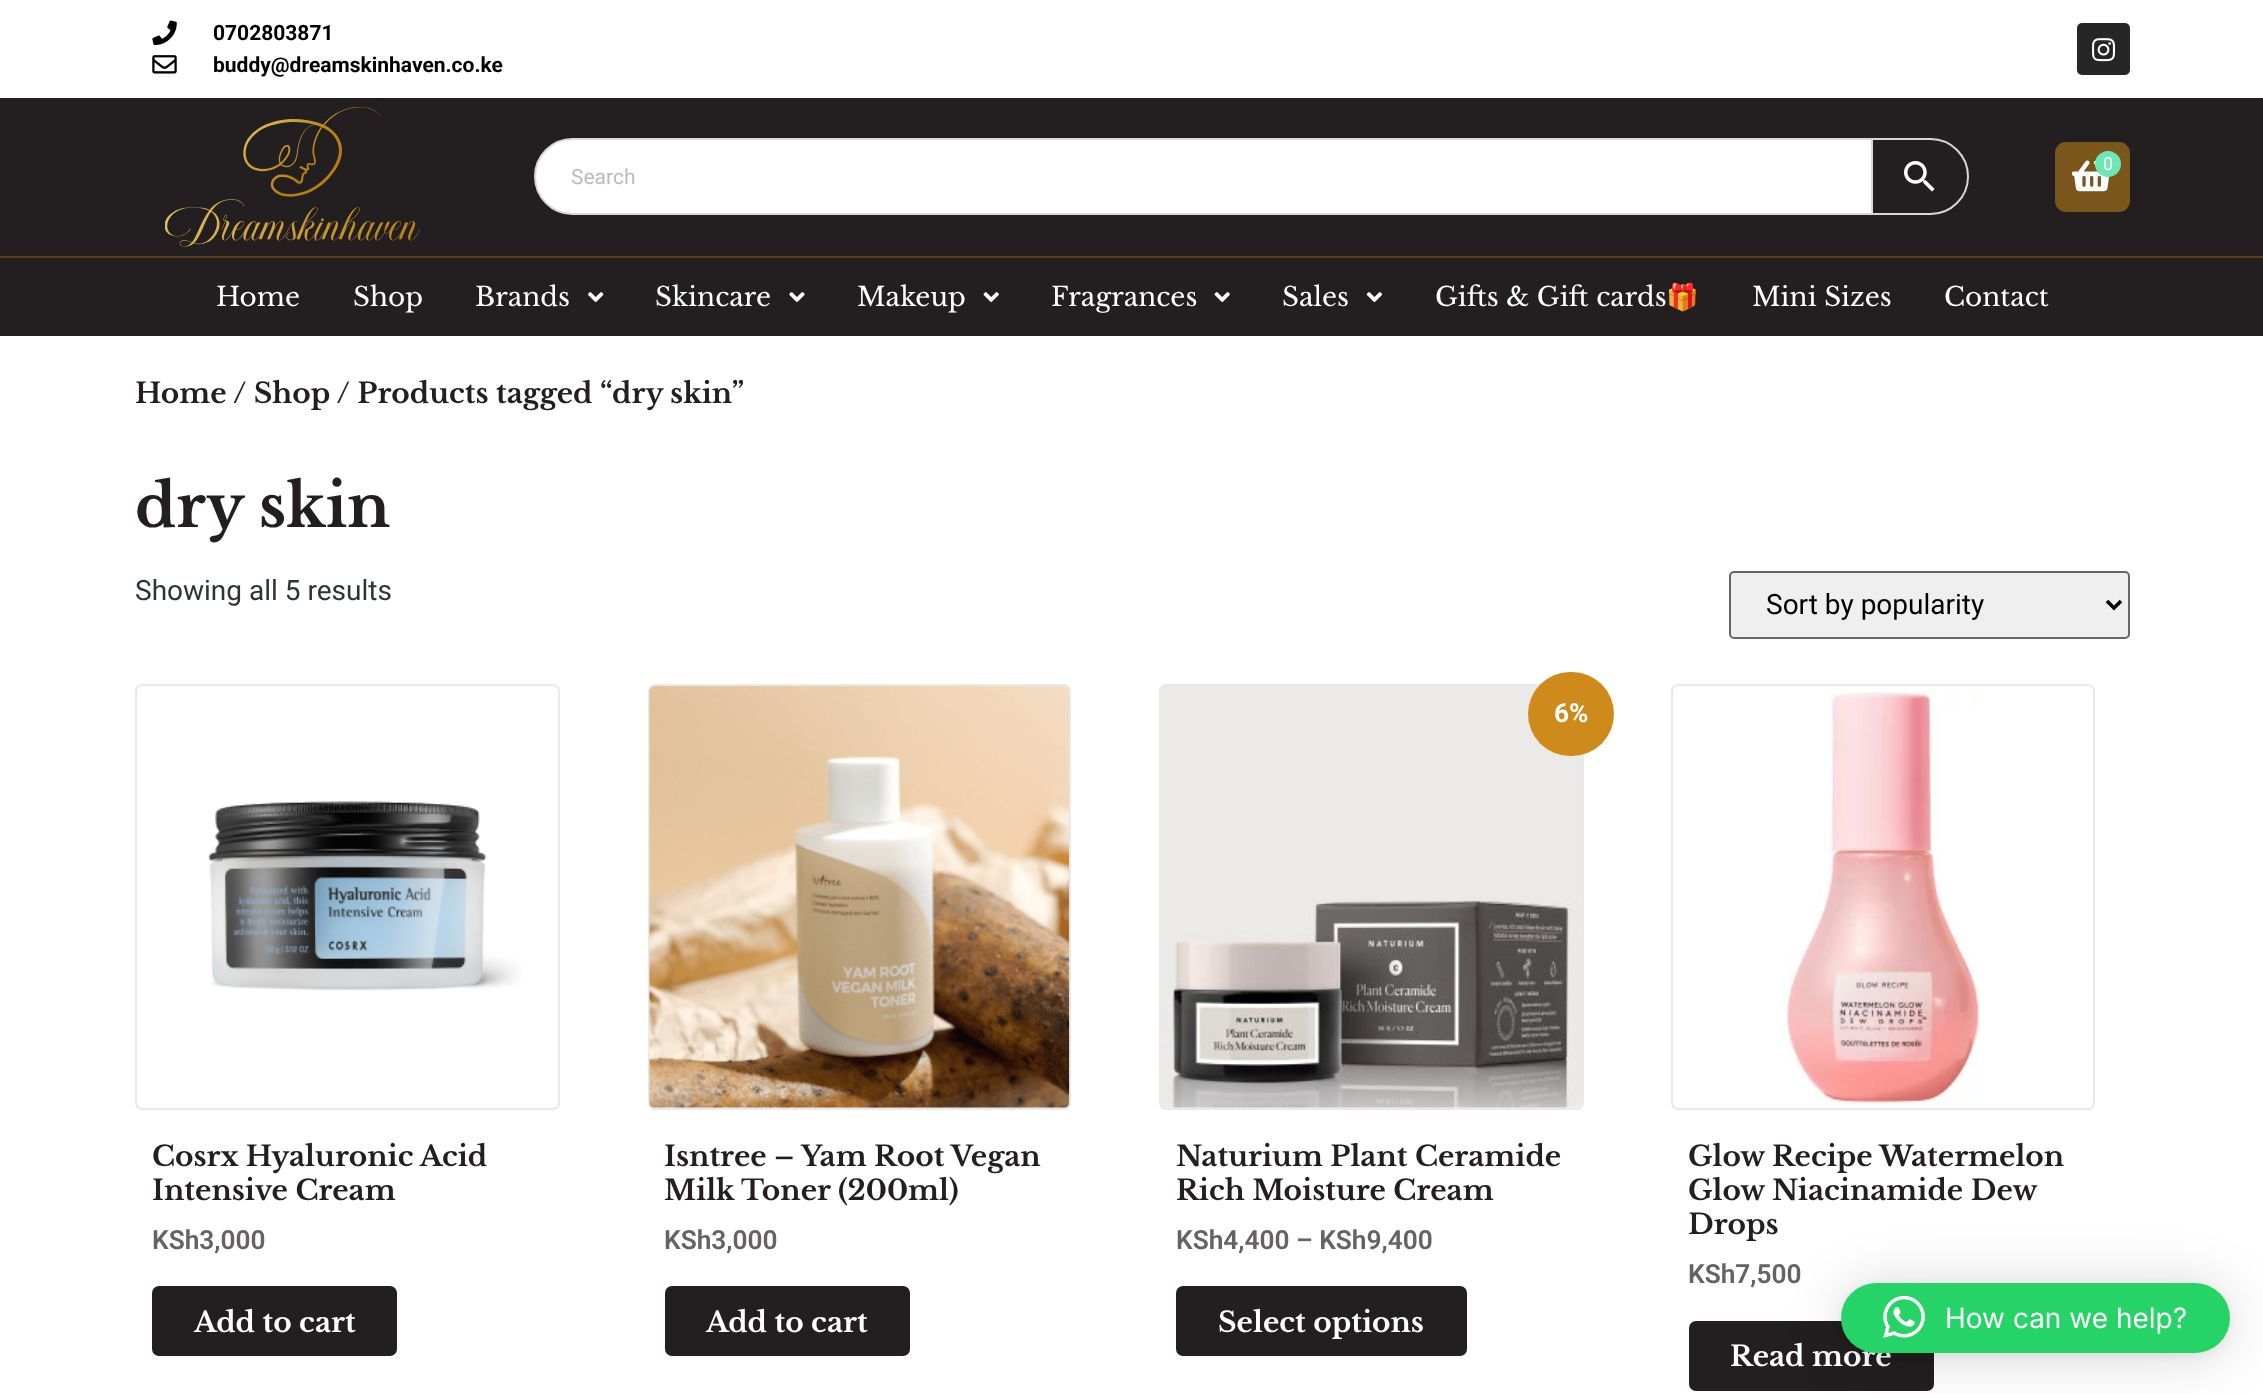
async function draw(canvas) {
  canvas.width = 2263;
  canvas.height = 1394;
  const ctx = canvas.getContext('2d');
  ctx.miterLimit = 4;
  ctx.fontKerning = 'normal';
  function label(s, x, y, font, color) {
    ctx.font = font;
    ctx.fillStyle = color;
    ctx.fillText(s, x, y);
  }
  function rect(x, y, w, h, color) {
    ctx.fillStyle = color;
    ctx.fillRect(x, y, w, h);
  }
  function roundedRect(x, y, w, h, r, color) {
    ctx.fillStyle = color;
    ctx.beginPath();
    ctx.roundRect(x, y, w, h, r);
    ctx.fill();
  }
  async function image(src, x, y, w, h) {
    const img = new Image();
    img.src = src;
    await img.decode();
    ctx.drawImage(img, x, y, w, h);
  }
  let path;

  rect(0, 0, 2263, 1394, '#fff');
  await image('assets/img1.png', 152, 20, 25, 26);
  label('0702803871', 213, 40, 'bold 21px Roboto', '#000');
  await image('assets/img2.png', 152, 55, 25, 19);
  label('buddy@dreamskinhaven.co.ke', 213, 72, 'bold 21px Roboto', '#000');
  roundedRect(2077, 23, 53, 52, 5, '#262626');
  await image('assets/img3.png', 2092, 38, 24, 24);
  rect(0, 98, 2263, 158, '#231f20');
  await image('assets/img4.png', 165, 107, 255, 140);
  roundedRect(2055, 142, 75, 70, 11, '#7a561d');
  await image('assets/img5.png', 2072, 160, 38, 32);
  ctx.fillStyle = '#6ee7b7';
  ctx.beginPath();
  ctx.arc(2108, 164, 13, 0, 2 * Math.PI);
  ctx.fill();
  label('0', 2103, 170, '18px Roboto', '#fff');
  ctx.beginPath();
  ctx.roundRect(1872, 139, 96, 75, [0, 37.5, 37.5, 0]);
  ctx.strokeStyle = '#d8d8d8';
  ctx.lineWidth = 2;
  ctx.stroke();
  ctx.beginPath();
  ctx.roundRect(535, 139, 1337, 75, [37.5, 0, 0, 37.5]);
  ctx.fill();
  ctx.stroke();
  label('Search', 571, 184, '21px Roboto', '#bababa');
  await image('assets/img6.png', 1904, 161, 31, 31);
  rect(0, 258, 2263, 78, '#231f20');
  rect(0, 256, 2263, 2, '#5a411e');
  label('Home', 216, 306, '26.25px Libre Baskerville', '#fff');
  label('Shop', 353, 306, '26.25px Libre Baskerville', '#fff');
  label('Brands', 475, 306, '26.25px Libre Baskerville', '#fff');
  await image('assets/img7.png', 588, 292, 16, 10);
  label('Skincare', 655, 306, '26.25px Libre Baskerville', '#fff');
  await image('assets/img8.png', 789, 292, 16, 10);
  label('Makeup', 857, 306, '26.25px Libre Baskerville', '#fff');
  await image('assets/img9.png', 983, 292, 16, 10);
  label('Fragrances', 1051, 306, '26.25px Libre Baskerville', '#fff');
  await image('assets/img9.png', 1214, 292, 16, 10);
  label('Sales', 1282, 306, '26.25px Libre Baskerville', '#fff');
  await image('assets/img10.png', 1366, 292, 17, 10);
  label('Gifts & Gift cards', 1435, 306, '26.25px Libre Baskerville', '#fff');
  label('🎁', 1666, 306, '26.25px Noto Color Emoji', '#fff');
  label('Mini Sizes', 1752, 306, '26.25px Libre Baskerville', '#fff');
  label('Contact', 1944, 306, '26.25px Libre Baskerville', '#fff');
  label('Home / Shop / Products tagged “dry skin”', 135, 403, 'bold 28px Libre Baskerville', '#231f20');
  label('dry skin', 135, 527, 'bold 59.5px Libre Baskerville', '#231f20');
  label('Showing all 5 results', 135, 600, '28px Roboto', '#2e3337');
  ctx.fillStyle = '#efefef';
  ctx.beginPath();
  ctx.roundRect(1730, 572, 399, 66, 4);
  ctx.fill();
  ctx.strokeStyle = '#666';
  ctx.stroke();
  path = new Path2D('M2107 601L2114 608L2121 601');
  ctx.strokeStyle = '#000';
  ctx.lineWidth = 3.5;
  ctx.stroke(path);
  label('Sort by popularity', 1766, 614, '28px Roboto', '#000');
  ctx.beginPath();
  ctx.roundRect(136, 685, 423, 424, 6);
  ctx.strokeStyle = '#e9e9e9';
  ctx.lineWidth = 2;
  ctx.stroke();
  await image('assets/img11.png', 208, 801, 313, 190);
  label('Cosrx Hyaluronic Acid', 152, 1166, 'bold 28px Libre Baskerville', '#231f20');
  label('Intensive Cream', 152, 1200, 'bold 28px Libre Baskerville', '#231f20');
  label('KSh3,000', 152, 1249, '600 26.25px Roboto', '#656263');
  roundedRect(152, 1286, 245, 70, 7, '#231f20');
  label('Add to cart', 194, 1332, 'bold 28px Libre Baskerville', '#fff');
  ctx.beginPath();
  ctx.roundRect(649, 685, 421, 424, 6);
  ctx.stroke();
  await image('assets/img12.png', 649, 686, 421, 422);
  label('Isntree – Yam Root Vegan', 664, 1166, 'bold 28px Libre Baskerville', '#231f20');
  label('Milk Toner (200ml)', 664, 1200, 'bold 28px Libre Baskerville', '#231f20');
  label('KSh3,000', 664, 1249, '600 26.25px Roboto', '#656263');
  roundedRect(665, 1286, 245, 70, 7, '#231f20');
  label('Add to cart', 706, 1332, 'bold 28px Libre Baskerville', '#fff');
  ctx.beginPath();
  ctx.roundRect(1160, 685, 423, 424, 6);
  ctx.stroke();
  await image('assets/img13.png', 1161, 686, 421, 422);
  roundedRect(1528, 672, 86, 84, 42, '#ce8a1a');
  label('6%', 1554, 722, 'bold 26.25px Roboto', '#fff');
  label('Naturium Plant Ceramide', 1176, 1166, 'bold 28px Libre Baskerville', '#231f20');
  label('Rich Moisture Cream', 1176, 1200, 'bold 28px Libre Baskerville', '#231f20');
  label('KSh4,400 – KSh9,400', 1176, 1249, '600 26.25px Roboto', '#656263');
  roundedRect(1176, 1286, 291, 70, 7, '#231f20');
  label('Select options', 1218, 1332, 'bold 28px Libre Baskerville', '#fff');
  ctx.beginPath();
  ctx.roundRect(1672, 685, 422, 424, 6);
  ctx.stroke();
  await image('assets/img14.png', 1785, 691, 196, 413);
  label('Glow Recipe Watermelon', 1688, 1166, 'bold 28px Libre Baskerville', '#231f20');
  label('Glow Niacinamide Dew', 1688, 1200, 'bold 28px Libre Baskerville', '#231f20');
  label('Drops', 1688, 1234, 'bold 28px Libre Baskerville', '#231f20');
  label('KSh7,500', 1688, 1283, '600 26.25px Roboto', '#656263');
  roundedRect(1689, 1321, 245, 70, 7, '#231f20');
  label('Read more', 1730, 1366, 'bold 28px Libre Baskerville', '#fff');
  ctx.fillStyle = '#00000029';
  ctx.filter = 'blur(28px)';
  ctx.beginPath();
  ctx.roundRect(1841, 1286, 389, 70, 35);
  ctx.fill();
  ctx.filter = 'none';
  ctx.fillStyle = '#0000000f';
  ctx.filter = 'blur(5px)';
  ctx.beginPath();
  ctx.roundRect(1841, 1285, 389, 70, 35);
  ctx.fill();
  ctx.filter = 'none';
  roundedRect(1841, 1283, 389, 70, 35, '#25d366');
  await image('assets/img15.png', 1883, 1295, 42, 43);
  label('How can we help?', 1945, 1328, '28px Inter', '#fff');
}

draw(document.querySelector('canvas'));
